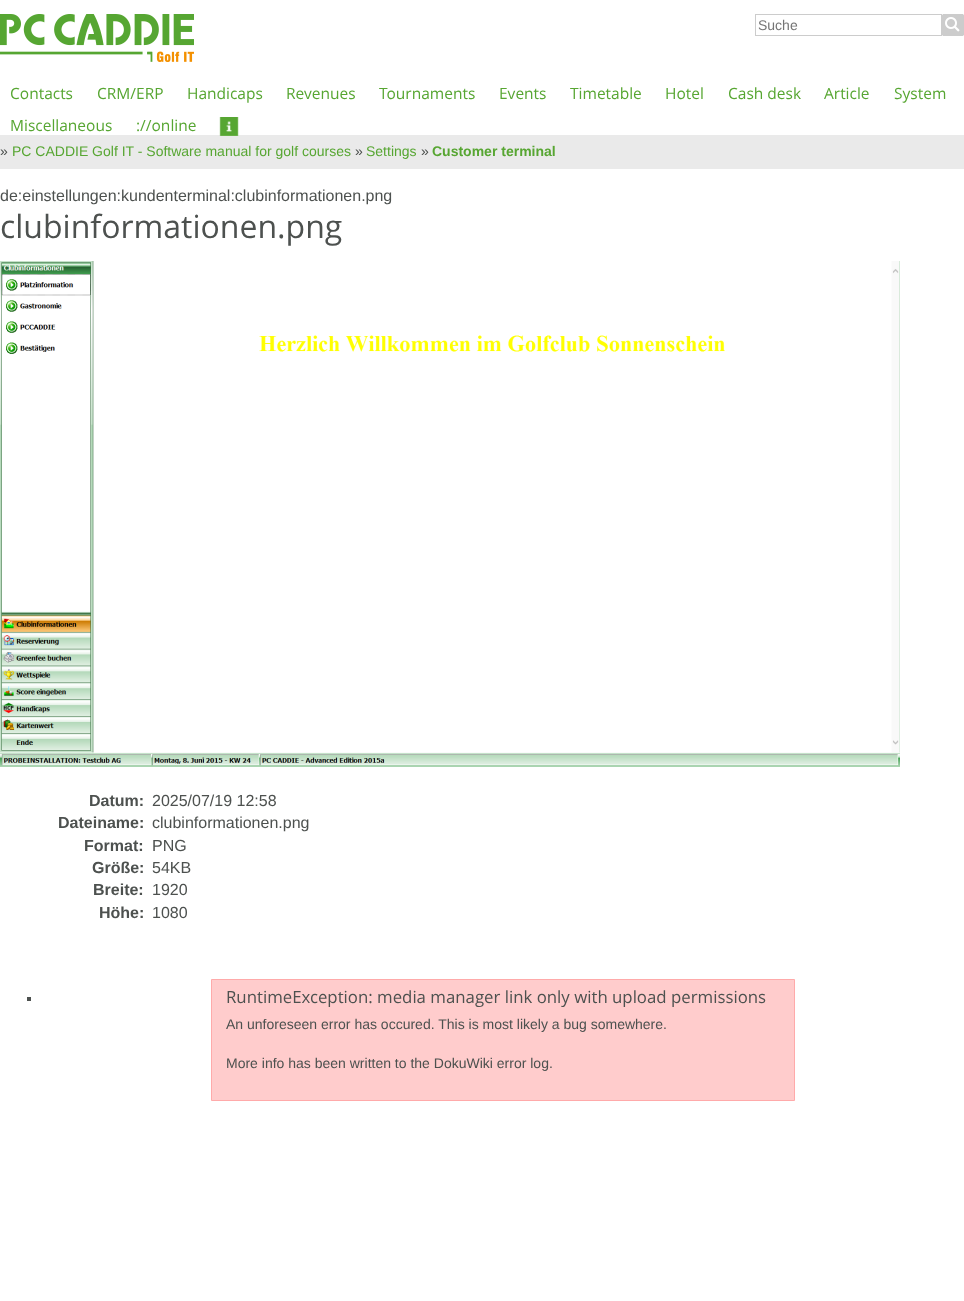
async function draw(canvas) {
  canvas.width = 964;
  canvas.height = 1301;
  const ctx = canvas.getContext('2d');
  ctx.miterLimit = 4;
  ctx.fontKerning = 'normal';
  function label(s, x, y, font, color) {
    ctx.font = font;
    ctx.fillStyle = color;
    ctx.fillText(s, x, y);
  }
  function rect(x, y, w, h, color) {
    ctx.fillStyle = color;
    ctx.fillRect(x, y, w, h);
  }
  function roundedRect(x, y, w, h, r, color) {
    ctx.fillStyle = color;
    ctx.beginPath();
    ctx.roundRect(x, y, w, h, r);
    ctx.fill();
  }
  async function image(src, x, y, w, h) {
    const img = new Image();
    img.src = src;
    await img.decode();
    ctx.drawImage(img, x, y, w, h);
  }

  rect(0, 0, 964, 1301, '#fff');
  await image('assets/img1.png', 0, 14, 194, 48);
  ctx.strokeStyle = '#ccc';
  ctx.strokeRect(755.5, 14.5, 186, 21);
  label('Suche', 758, 30, '14px Liberation Sans', '#757575');
  roundedRect(942, 14, 22, 22, 2, '#ccc');
  await image('assets/img2.png', 945, 17, 15, 15);
  ctx.beginPath();
  ctx.roundRect(942.5, 14.5, 21, 21, 1.5);
  ctx.stroke();
  label('Contacts', 10, 99, '15.5px Open Sans', '#57a632');
  label('CRM/ERP', 97, 99, '15.5px Open Sans', '#57a632');
  label('Handicaps', 187, 99, '15.5px Open Sans', '#57a632');
  label('Revenues', 286, 99, '15.5px Open Sans', '#57a632');
  label('Tournaments', 379, 99, '15.5px Open Sans', '#57a632');
  label('Events', 499, 99, '15.5px Open Sans', '#57a632');
  label('Timetable', 570, 99, '15.5px Open Sans', '#57a632');
  label('Hotel', 665, 99, '15.5px Open Sans', '#57a632');
  label('Cash desk', 728, 99, '15.5px Open Sans', '#57a632');
  label('Article', 824, 99, '15.5px Open Sans', '#57a632');
  label('System', 894, 99, '15.5px Open Sans', '#57a632');
  label('Miscellaneous', 10, 131, '15.5px Open Sans', '#57a632');
  label('://online', 136, 131, '15.5px Open Sans', '#57a632');
  rect(0, 135, 964, 34, '#eaeaea');
  await image('assets/img3.png', 219, 117, 20, 19);
  label('»', 0, 156, '14px Liberation Sans', '#4d514f');
  label('PC CADDIE Golf IT - Software manual for golf courses', 12, 156, '14px Liberation Sans', '#57a632');
  label('»', 355, 156, '14px Liberation Sans', '#4d514f');
  label('Settings', 366, 156, '14px Liberation Sans', '#57a632');
  label('»', 421, 156, '14px Liberation Sans', '#4d514f');
  label('Customer terminal', 432, 156, 'bold 14px Liberation Sans', '#57a632');
  label('de:einstellungen:kundenterminal:clubinformationen.png', 0, 201, '16px Liberation Sans', '#4d514f');
  label('clubinformationen.png', 0, 238, '32px Open Sans', '#4d514f');
  await image('assets/img4.png', 0, 261, 900, 506);
  label('Datum:', 89, 806, 'bold 16px Liberation Sans', '#4d514f');
  label('2025/07/19 12:58', 152, 806, '16px Liberation Sans', '#4d514f');
  label('Dateiname:', 58, 828, 'bold 16px Liberation Sans', '#4d514f');
  label('clubinformationen.png', 152, 828, '16px Liberation Sans', '#4d514f');
  label('Format:', 84, 851, 'bold 16px Liberation Sans', '#4d514f');
  label('PNG', 152, 851, '16px Liberation Sans', '#4d514f');
  label('Größe:', 92, 873, 'bold 16px Liberation Sans', '#4d514f');
  label('54KB', 152, 873, '16px Liberation Sans', '#4d514f');
  label('Breite:', 93, 895, 'bold 16px Liberation Sans', '#4d514f');
  label('1920', 152, 895, '16px Liberation Sans', '#4d514f');
  label('Höhe:', 99, 918, 'bold 16px Liberation Sans', '#4d514f');
  label('1080', 152, 918, '16px Liberation Sans', '#4d514f');
  rect(27, 997, 4, 4, '#4d514f');
  ctx.fillStyle = '#fcc';
  ctx.beginPath();
  ctx.rect(211.5, 979.5, 583, 121);
  ctx.fill();
  ctx.strokeStyle = '#faa';
  ctx.stroke();
  label('RuntimeException: media manager link only with upload permissions', 226, 1003, '16.8px Open Sans', '#4d514f');
  label('An unforeseen error has occured. This is most likely a bug somewhere.', 226, 1029, '14px Liberation Sans', '#4d514f');
  label('More info has been written to the DokuWiki error log.', 226, 1068, '14px Liberation Sans', '#4d514f');
}

draw(document.querySelector('canvas'));
